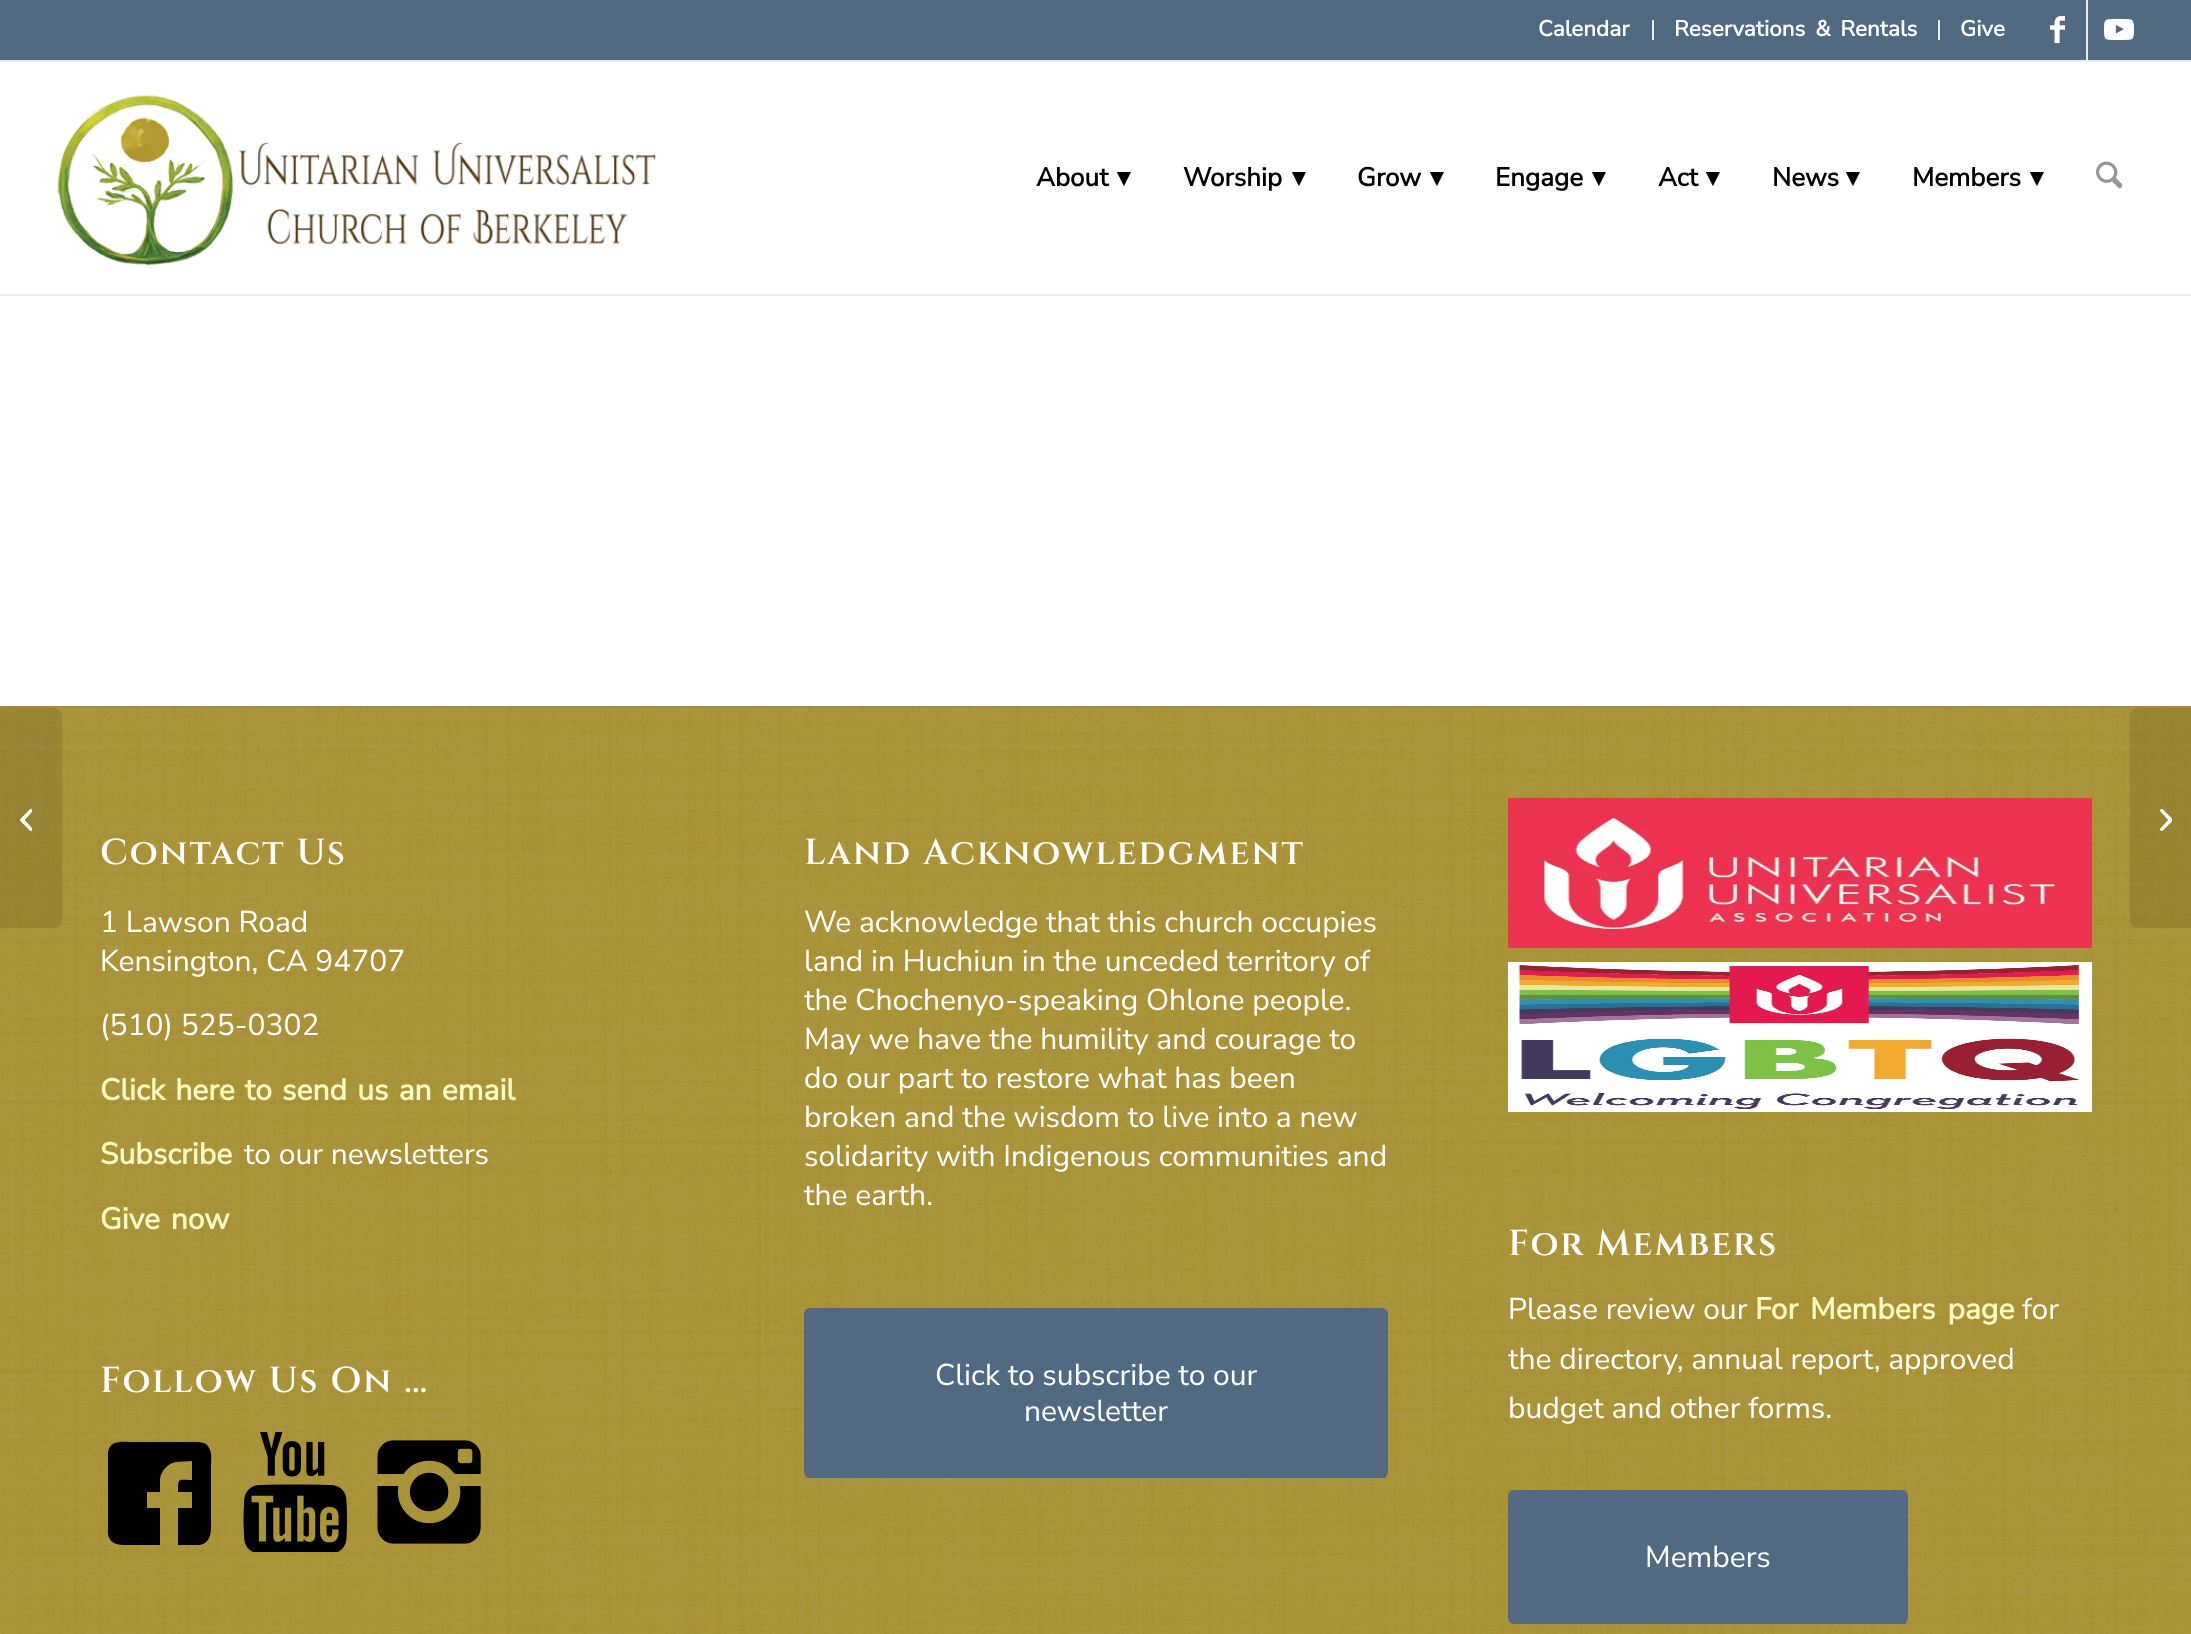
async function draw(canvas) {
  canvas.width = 2191;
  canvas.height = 1634;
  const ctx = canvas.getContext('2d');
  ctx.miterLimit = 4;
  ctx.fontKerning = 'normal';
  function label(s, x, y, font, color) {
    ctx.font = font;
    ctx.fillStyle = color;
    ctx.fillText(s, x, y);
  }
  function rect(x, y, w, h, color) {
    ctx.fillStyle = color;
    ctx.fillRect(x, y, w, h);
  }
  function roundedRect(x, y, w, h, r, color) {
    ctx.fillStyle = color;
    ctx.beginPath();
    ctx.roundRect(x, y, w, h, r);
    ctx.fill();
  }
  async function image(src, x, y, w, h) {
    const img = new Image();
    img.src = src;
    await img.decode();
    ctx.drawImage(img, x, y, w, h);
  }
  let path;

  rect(0, 0, 2191, 1634, '#fff');
  rect(0, 0, 2191, 60, '#516a81');
  rect(0, 60, 2191, 2, '#ebebeb');
  rect(1652, 20, 2, 20, '#ebebeb');
  label('Calendar', 1538, 36, 'bold 22px "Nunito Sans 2"', '#fff');
  rect(1938, 20, 2, 20, '#ebebeb');
  ctx.wordSpacing = '4px';
  label('Reservations & Rentals', 1674, 36, 'bold 22px "Nunito Sans 2"', '#fff');
  ctx.wordSpacing = '0px';
  label('Give', 1960, 36, 'bold 22px "Nunito Sans 2"', '#fff');
  rect(2086, 0, 2, 60, '#ebebeb');
  await image('assets/img1.png', 2050, 16, 15, 27);
  await image('assets/img2.png', 2104, 18, 30, 23);
  rect(0, 294, 2191, 2, '#ebebeb');
  await image('assets/img3.png', 57, 95, 599, 171);
  label('About', 1036, 186, 'bold 26px Nunito Sans', '#000');
  label('▾', 1117, 186, 'bold 26px DejaVu Sans', '#000');
  label('Worship', 1183, 186, 'bold 26px Nunito Sans', '#000');
  label('▾', 1292, 186, 'bold 26px DejaVu Sans', '#000');
  label('Grow', 1357, 186, 'bold 26px Nunito Sans', '#000');
  label('▾', 1430, 186, 'bold 26px DejaVu Sans', '#000');
  label('Engage', 1495, 186, 'bold 26px Nunito Sans', '#000');
  label('▾', 1592, 186, 'bold 26px DejaVu Sans', '#000');
  label('Act', 1658, 186, 'bold 26px Nunito Sans', '#000');
  label('▾', 1706, 186, 'bold 26px DejaVu Sans', '#000');
  label('News', 1772, 186, 'bold 26px Nunito Sans', '#000');
  label('▾', 1846, 186, 'bold 26px DejaVu Sans', '#000');
  label('Members', 1912, 186, 'bold 26px Nunito Sans', '#000');
  label('▾', 2030, 186, 'bold 26px DejaVu Sans', '#000');
  await image('assets/img4.png', 2096, 161, 26, 28);
  rect(0, 706, 2191, 928, '#a78f2e');
  await image('assets/img6.png', 0, 708, 2191, 926);
  ctx.fillStyle = '#0000001a';
  ctx.beginPath();
  ctx.roundRect(0, 708, 62, 220, [0, 8, 8, 0]);
  ctx.fill();
  await image('assets/img5.png', 20, 808, 12, 23);
  ctx.letterSpacing = '2px';
  label('Contact Us', 100, 864, '600 36px Cinzel', '#fff');
  ctx.letterSpacing = '0px';
  label('1 Lawson Road', 100, 932, '30px Nunito Sans', '#fff');
  label('Kensington, CA 94707', 100, 971, '30px Nunito Sans', '#fff');
  label('(510) 525-0302', 100, 1035, '30px Nunito Sans', '#fff');
  ctx.wordSpacing = '2.5px';
  label('Click here to send us an email', 100, 1100, 'bold 30px Nunito Sans', '#f6fac0');
  ctx.wordSpacing = '0px';
  label('Subscribe', 100, 1164, 'bold 30px Nunito Sans', '#f6fac0');
  label('to our newsletters', 244, 1164, '30px Nunito Sans', '#fff');
  ctx.wordSpacing = '3px';
  label('Give now', 100, 1229, 'bold 30px Nunito Sans', '#f6fac0');
  ctx.letterSpacing = '2px';
  ctx.wordSpacing = '0px';
  label('Follow Us On …', 100, 1392, '600 36px Cinzel', '#fff');
  ctx.fillStyle = '#000';
  path = new Path2D('M198 1442C201 1442 204 1443 206 1444C213 1450 211 1459 211 1467V1519C211 1528 213 1542 200 1545H178V1508H192V1492H178C178 1477 178 1480 192 1480V1461L176 1462C168 1463 161 1471 160 1479V1492H147V1508H160V1545H134C124 1545 110 1547 108 1534V1453C109 1439 124 1442 133 1442Z');
  ctx.fill(path);
  await image('assets/img7.png', 243, 1432, 105, 120);
  await image('assets/img8.png', 377, 1440, 104, 104);
  label('Land Acknowledgment', 804, 864, '600 36px Cinzel', '#fff');
  ctx.letterSpacing = '0px';
  label('We acknowledge that this church occupies', 804, 932, '30px Nunito Sans', '#fff');
  label('land in Huchiun in the unceded territory of', 804, 971, '30px Nunito Sans', '#fff');
  label('the Chochenyo-speaking Ohlone people.', 804, 1010, '30px Nunito Sans', '#fff');
  label('May we have the humility and courage to', 804, 1049, '30px Nunito Sans', '#fff');
  label('do our part to restore what has been', 804, 1088, '30px Nunito Sans', '#fff');
  label('broken and the wisdom to live into a new', 804, 1127, '30px Nunito Sans', '#fff');
  label('solidarity with Indigenous communities and', 804, 1166, '30px Nunito Sans', '#fff');
  label('the earth.', 804, 1205, '30px Nunito Sans', '#fff');
  roundedRect(804, 1308, 584, 170, 6, '#516a81');
  rect(808, 1476, 578, 2, '#516a81');
  label('Click to subscribe to our', 935, 1385, '30px Nunito Sans', '#fff');
  label('newsletter', 1024, 1421, '30px Nunito Sans', '#fff');
  await image('assets/img9.png', 1508, 798, 584, 150);
  await image('assets/img10.png', 1508, 962, 584, 150);
  ctx.letterSpacing = '2px';
  label('For Members', 1508, 1255, '600 36px Cinzel', '#fff');
  ctx.letterSpacing = '0px';
  label('Please review our', 1508, 1319, '30px Nunito Sans', '#fff');
  ctx.wordSpacing = '4px';
  label('For Members page', 1755, 1319, 'bold 30px Nunito Sans', '#f6fac0');
  ctx.wordSpacing = '0px';
  label('for', 2022, 1319, '30px Nunito Sans', '#fff');
  ctx.save();
  ctx.beginPath();
  ctx.rect(1508, 1188, 584, 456);
  ctx.clip();
  label('the directory, annual report, approved', 1508, 1369, '30px Nunito Sans', '#fff');
  ctx.restore();
  label('budget and other forms.', 1508, 1418, '30px Nunito Sans', '#fff');
  roundedRect(1508, 1490, 400, 134, 6, '#516a81');
  rect(1512, 1622, 394, 2, '#516a81');
  label('Members', 1645, 1567, '30px Nunito Sans', '#fff');
  ctx.fillStyle = '#0000001a';
  path = new Path2D('M2138 708H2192V928H2138C2133.5 928 2130 924.5 2130 920V716C2130 711.5 2133.5 708 2138 708Z');
  ctx.fill(path);
  await image('assets/img11.png', 2160, 808, 12, 24);
}

draw(document.querySelector('canvas'));
